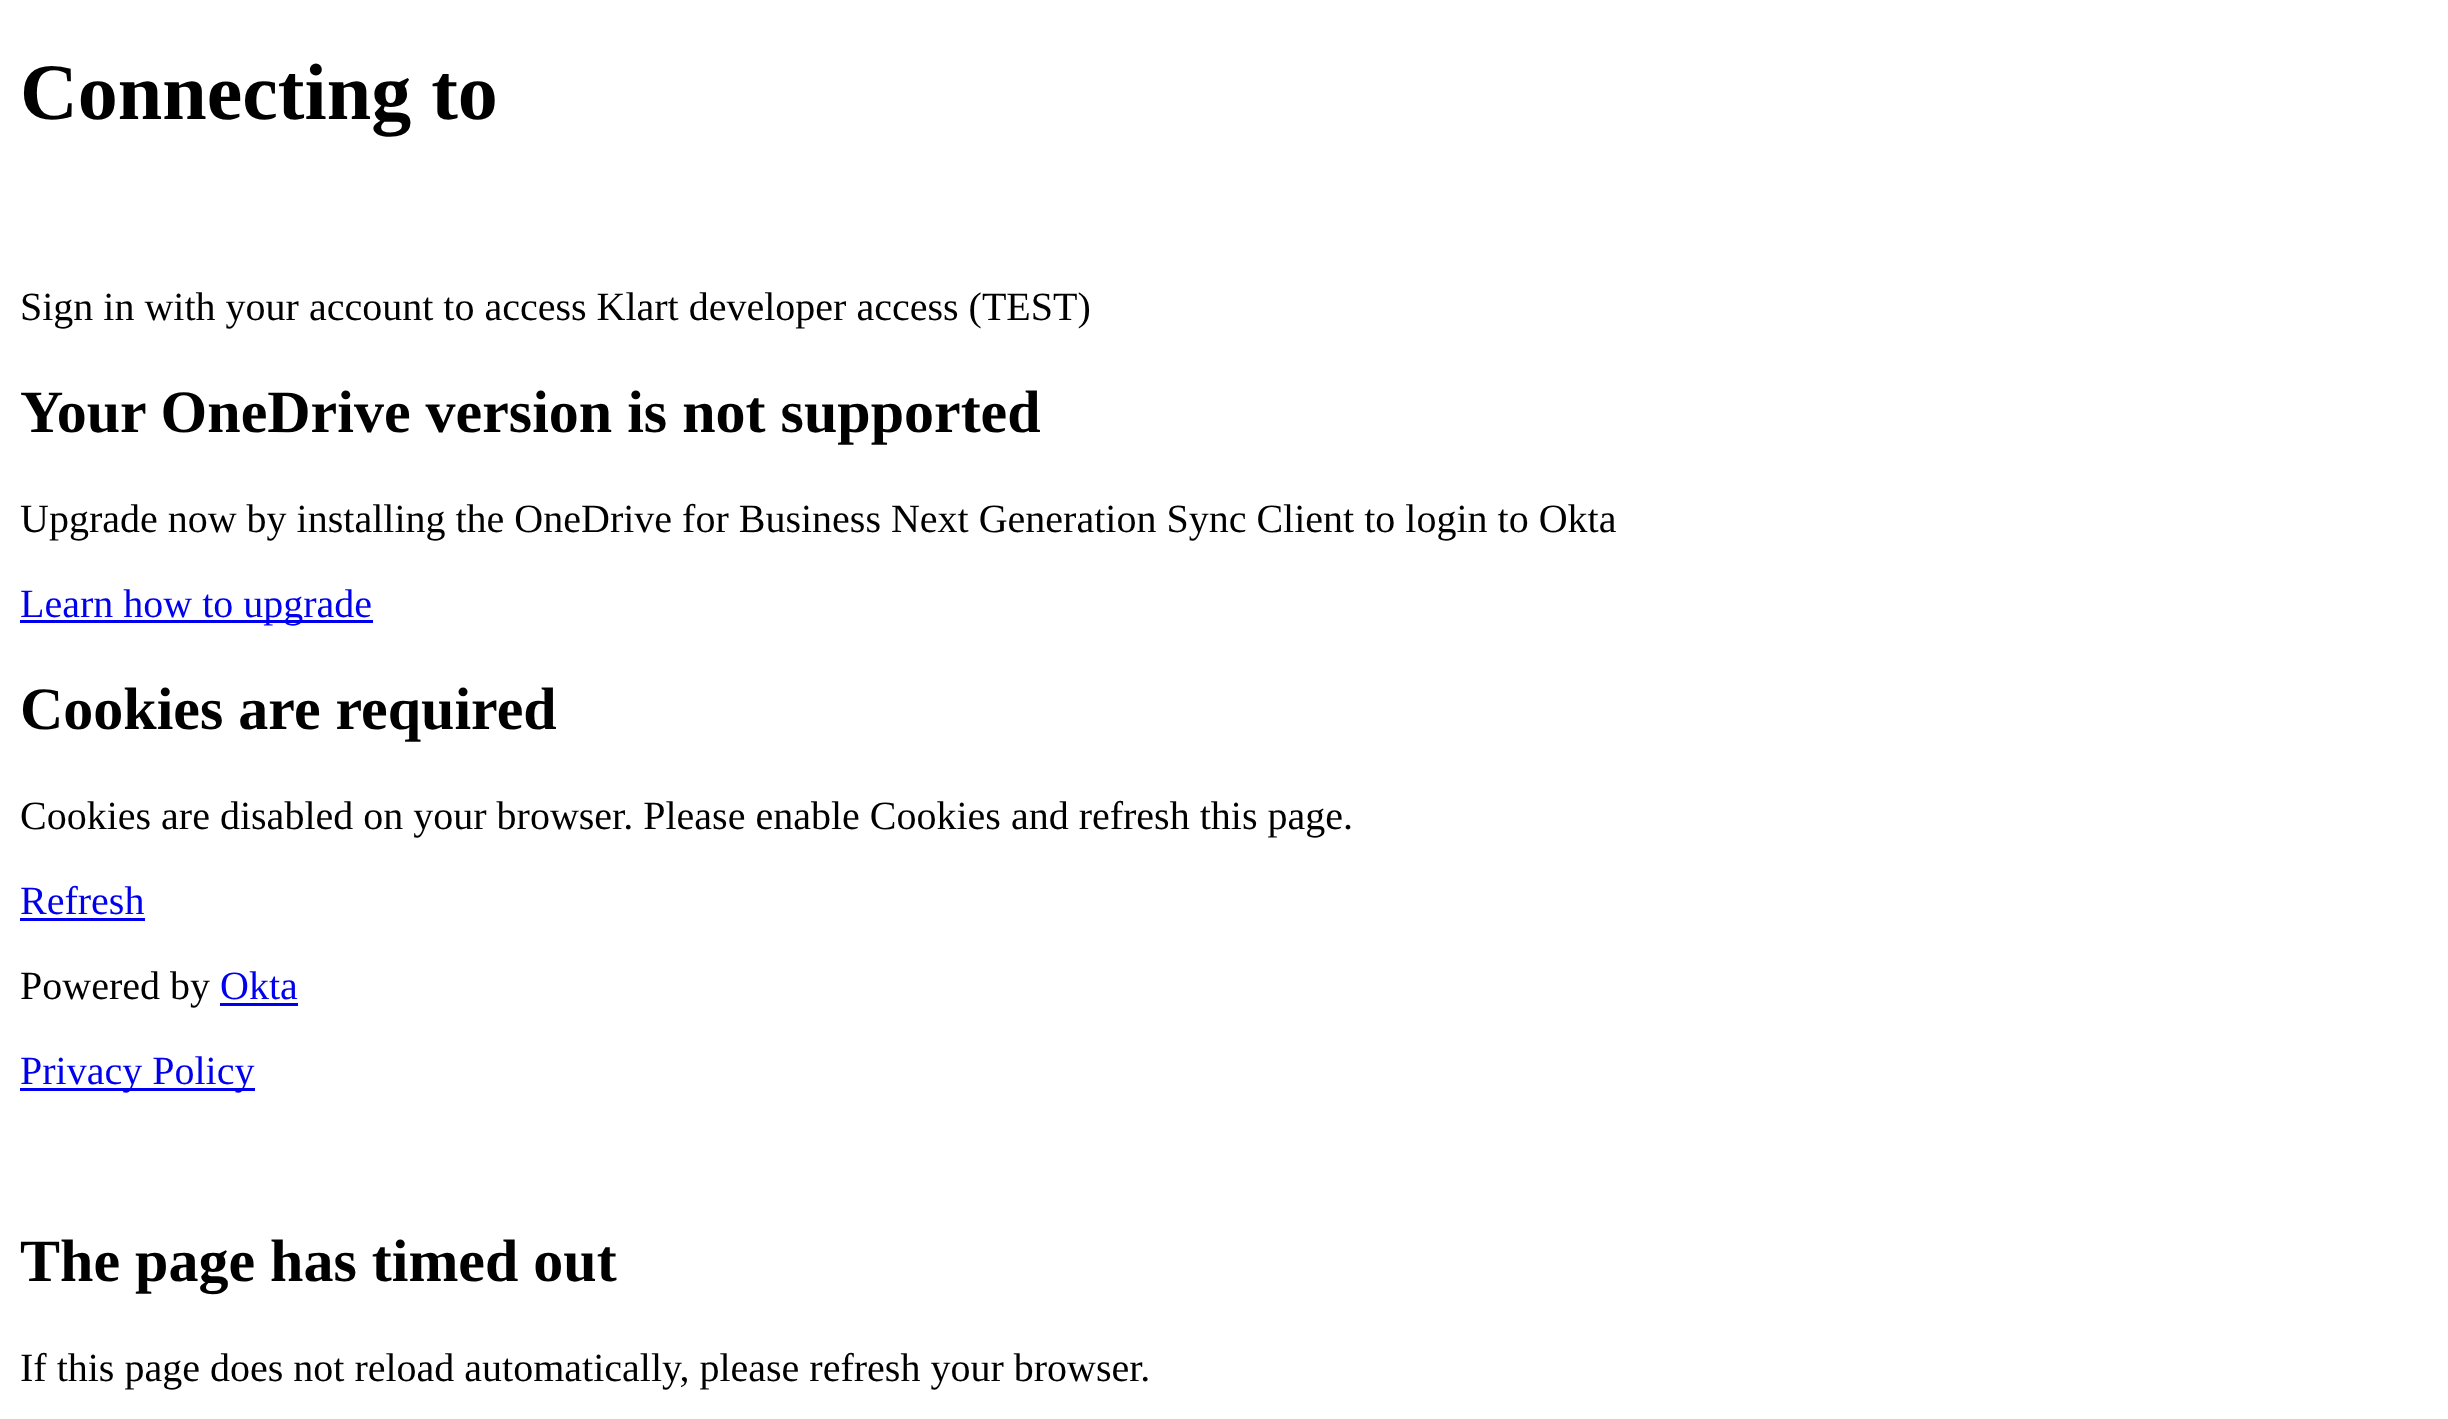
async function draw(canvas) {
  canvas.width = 2448;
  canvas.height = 1419;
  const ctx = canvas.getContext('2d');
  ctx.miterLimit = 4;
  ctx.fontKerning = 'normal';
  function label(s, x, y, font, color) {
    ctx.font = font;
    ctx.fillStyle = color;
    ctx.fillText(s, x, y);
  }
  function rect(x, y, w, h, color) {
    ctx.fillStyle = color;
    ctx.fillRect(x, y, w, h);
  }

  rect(0, 0, 2448, 1419, '#fff');
  label('Connecting to', 20, 119, 'bold 80px Liberation Serif', '#000');
  label('Sign in with your account to access Klart developer access (TEST)', 20, 320, '40px Liberation Serif', '#000');
  label('Your OneDrive version is not supported', 20, 432, 'bold 60px Liberation Serif', '#000');
  label('Upgrade now by installing the OneDrive for Business Next Generation Sync Client to login to Okta', 20, 532, '40px Liberation Serif', '#000');
  rect(20, 620, 353, 3, '#00e');
  label('Learn how to upgrade', 20, 617, '40px Liberation Serif', '#00e');
  label('Cookies are required', 20, 729, 'bold 60px Liberation Serif', '#000');
  label('Cookies are disabled on your browser. Please enable Cookies and refresh this page.', 20, 829, '40px Liberation Serif', '#000');
  label('Refresh', 20, 914, '40px Liberation Serif', '#00e');
  rect(20, 918, 125, 3, '#00e');
  label('Powered by', 20, 999, '40px Liberation Serif', '#000');
  label('Okta', 220, 999, '40px Liberation Serif', '#00e');
  rect(220, 1003, 78, 3, '#00e');
  rect(20, 1088, 235, 3, '#00e');
  label('Privacy Policy', 20, 1084, '40px Liberation Serif', '#00e');
  label('The page has timed out', 20, 1281, 'bold 60px Liberation Serif', '#000');
  label('If this page does not reload automatically, please refresh your browser.', 20, 1381, '40px Liberation Serif', '#000');
}

draw(document.querySelector('canvas'));
